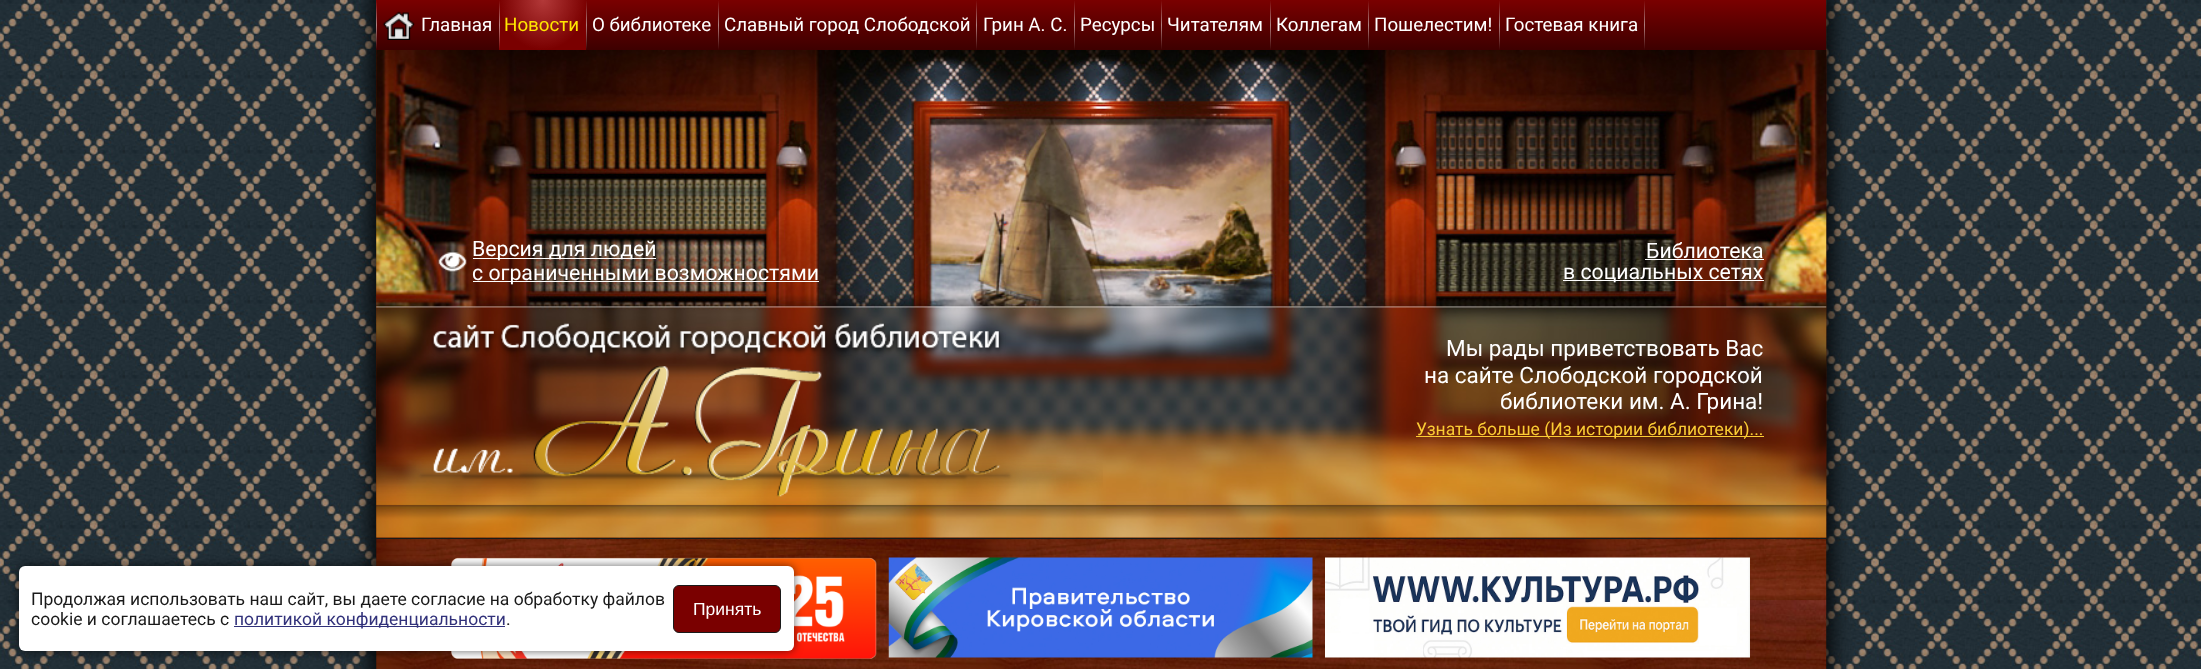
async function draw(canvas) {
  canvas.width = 2201;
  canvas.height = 669;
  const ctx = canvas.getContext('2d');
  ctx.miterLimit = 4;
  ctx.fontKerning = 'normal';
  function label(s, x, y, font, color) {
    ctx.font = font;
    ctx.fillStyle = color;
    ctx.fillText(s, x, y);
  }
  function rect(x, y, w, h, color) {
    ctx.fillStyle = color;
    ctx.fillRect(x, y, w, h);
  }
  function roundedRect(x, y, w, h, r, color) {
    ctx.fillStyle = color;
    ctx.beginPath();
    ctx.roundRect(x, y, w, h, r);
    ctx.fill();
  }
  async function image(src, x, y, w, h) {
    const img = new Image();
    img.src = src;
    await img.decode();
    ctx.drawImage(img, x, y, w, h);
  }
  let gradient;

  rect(0, 0, 2201, 669, '#fff');
  await image('assets/img1.png', 0, 0, 2201, 669);
  ctx.fillStyle = '#000000cc';
  ctx.filter = 'blur(9.5px)';
  ctx.beginPath();
  ctx.rect(370, -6, 1463, 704);
  ctx.fill();
  ctx.filter = 'none';
  await image('assets/img2.png', 376, 0, 1451, 669);
  gradient = ctx.createLinearGradient(1101, 50, 1101, 0);
  gradient.addColorStop(0, '#3d0000');
  gradient.addColorStop(1, '#7a0000');
  ctx.fillStyle = gradient;
  ctx.fillRect(376, 0, 1450, 50);
  gradient = ctx.createLinearGradient(377, 50, 377, 0);
  gradient.addColorStop(0, '#ffffff00');
  gradient.addColorStop(0.5, '#ffffff80');
  gradient.addColorStop(1, '#ffffff00');
  ctx.fillStyle = gradient;
  ctx.fillRect(376, 0, 1, 50);
  await image('assets/img3.png', 382, 11, 33, 29);
  label('Главная', 421, 31, '18.75px Roboto', '#fff');
  gradient = ctx.createRadialGradient(543, 0, 0, 543, 0, 44);
  gradient.addColorStop(0, '#b33939');
  gradient.addColorStop(1, '#7a0000');
  ctx.fillStyle = gradient;
  ctx.beginPath();
  ctx.rect(500, 0, 86, 50);
  ctx.save();
  ctx.clip();
  ctx.scale(1, 50 / 44);
  ctx.fillRect(0, 0, 2201, 589);
  ctx.restore();
  gradient = ctx.createLinearGradient(499, 50, 499, 0);
  gradient.addColorStop(0, '#7a0000');
  gradient.addColorStop(0.5, '#bd8080');
  gradient.addColorStop(1, '#7a0000');
  ctx.fillStyle = gradient;
  ctx.fillRect(499, 0, 1, 50);
  label('Новости', 504, 31, '18.75px Roboto', '#ffe700');
  gradient = ctx.createLinearGradient(587, 50, 587, 0);
  gradient.addColorStop(0, '#ffffff00');
  gradient.addColorStop(0.5, '#ffffff80');
  gradient.addColorStop(1, '#ffffff00');
  ctx.fillStyle = gradient;
  ctx.fillRect(586, 0, 1, 50);
  label('О библиотеке', 592, 31, '18.75px Roboto', '#fff');
  gradient = ctx.createLinearGradient(718, 50, 718, 0);
  gradient.addColorStop(0, '#ffffff00');
  gradient.addColorStop(0.5, '#ffffff80');
  gradient.addColorStop(1, '#ffffff00');
  ctx.fillStyle = gradient;
  ctx.fillRect(718, 0, 1, 50);
  label('Славный город Слободской', 724, 31, '18.75px Roboto', '#fff');
  gradient = ctx.createLinearGradient(977, 50, 977, 0);
  gradient.addColorStop(0, '#ffffff00');
  gradient.addColorStop(0.5, '#ffffff80');
  gradient.addColorStop(1, '#ffffff00');
  ctx.fillStyle = gradient;
  ctx.fillRect(976, 0, 1, 50);
  label('Грин А. С.', 983, 31, '18.75px Roboto', '#fff');
  gradient = ctx.createLinearGradient(1074, 50, 1074, 0);
  gradient.addColorStop(0, '#ffffff00');
  gradient.addColorStop(0.5, '#ffffff80');
  gradient.addColorStop(1, '#ffffff00');
  ctx.fillStyle = gradient;
  ctx.fillRect(1074, 0, 1, 50);
  label('Ресурсы', 1080, 31, '18.75px Roboto', '#fff');
  gradient = ctx.createLinearGradient(1162, 50, 1162, 0);
  gradient.addColorStop(0, '#ffffff00');
  gradient.addColorStop(0.5, '#ffffff80');
  gradient.addColorStop(1, '#ffffff00');
  ctx.fillStyle = gradient;
  ctx.fillRect(1161, 0, 1, 50);
  label('Читателям', 1167, 31, '18.75px Roboto', '#fff');
  gradient = ctx.createLinearGradient(1271, 50, 1271, 0);
  gradient.addColorStop(0, '#ffffff00');
  gradient.addColorStop(0.5, '#ffffff80');
  gradient.addColorStop(1, '#ffffff00');
  ctx.fillStyle = gradient;
  ctx.fillRect(1270, 0, 1, 50);
  label('Коллегам', 1276, 31, '18.75px Roboto', '#fff');
  gradient = ctx.createLinearGradient(1368, 50, 1368, 0);
  gradient.addColorStop(0, '#ffffff00');
  gradient.addColorStop(0.5, '#ffffff80');
  gradient.addColorStop(1, '#ffffff00');
  ctx.fillStyle = gradient;
  ctx.fillRect(1368, 0, 1, 50);
  label('Пошелестим!', 1374, 31, '18.75px Roboto', '#fff');
  gradient = ctx.createLinearGradient(1499, 50, 1499, 0);
  gradient.addColorStop(0, '#ffffff00');
  gradient.addColorStop(0.5, '#ffffff80');
  gradient.addColorStop(1, '#ffffff00');
  ctx.fillStyle = gradient;
  ctx.fillRect(1499, 0, 1, 50);
  label('Гостевая книга', 1505, 31, '18.75px Roboto', '#fff');
  gradient = ctx.createLinearGradient(1644, 50, 1644, 0);
  gradient.addColorStop(0, '#ffffff00');
  gradient.addColorStop(0.5, '#ffffff80');
  gradient.addColorStop(1, '#ffffff00');
  ctx.fillStyle = gradient;
  ctx.fillRect(1644, 0, 1, 50);
  await image('assets/img4.png', 376, 50, 1451, 488);
  rect(376, 538, 1450, 1, '#1a1a1a');
  await image('assets/img5.png', 438, 251, 29, 21);
  rect(473, 258, 183, 1, '#fff');
  label('Версия для людей', 472, 256, '21.25px Roboto', '#fff');
  rect(473, 281, 346, 1, '#fff');
  label('с ограниченными возможностями', 472, 280, '21.25px Roboto', '#fff');
  label('Библиотека', 1646, 258, '21.25px Roboto', '#fff');
  rect(1645, 259, 119, 1, '#fff');
  rect(1563, 280, 201, 1, '#fff');
  label('в социальных сетях', 1563, 279, '21.25px Roboto', '#fff');
  await image('assets/img6.png', 376, 323, 727, 174);
  label('Мы рады приветствовать Вас', 1446, 356, '22.5px Roboto', '#fff');
  label('на сайте Слободской городской', 1424, 383, '22.5px Roboto', '#fff');
  label('библиотеки им. А. Грина!', 1500, 409, '22.5px Roboto', '#fff');
  rect(1416, 436, 348, 1, '#fbcc34');
  label('Узнать больше (Из истории библиотеки)...', 1416, 435, '17.5px Roboto', '#fbcc34');
  await image('assets/img7.png', 451, 557, 426, 102);
  await image('assets/img8.png', 888, 557, 425, 101);
  await image('assets/img9.png', 1325, 557, 425, 101);
  ctx.fillStyle = '#00000099';
  ctx.filter = 'blur(5px)';
  ctx.beginPath();
  ctx.roundRect(19, 566, 775, 85, 6);
  ctx.fill();
  ctx.filter = 'none';
  roundedRect(19, 566, 775, 85, 6, '#fff');
  label('Продолжая использовать наш сайт, вы даете согласие на обработку файлов', 31, 605, '17.5px Roboto', '#1a1a1a');
  label('cookie и соглашаетесь с', 31, 625, '17.5px Roboto', '#1a1a1a');
  rect(234, 626, 271, 1, '#31317a');
  label('политикой конфиденциальности', 234, 625, '17.5px Roboto', '#31317a');
  label('.', 506, 625, '17.5px Roboto', '#1a1a1a');
  ctx.fillStyle = '#7a0000';
  ctx.beginPath();
  ctx.roundRect(673.5, 585.5, 107, 47, 5.5);
  ctx.fill();
  ctx.strokeStyle = '#1a1a1a';
  ctx.stroke();
  label('Принять', 693, 615, '17.5px Liberation Sans', '#fff');
}

draw(document.querySelector('canvas'));
